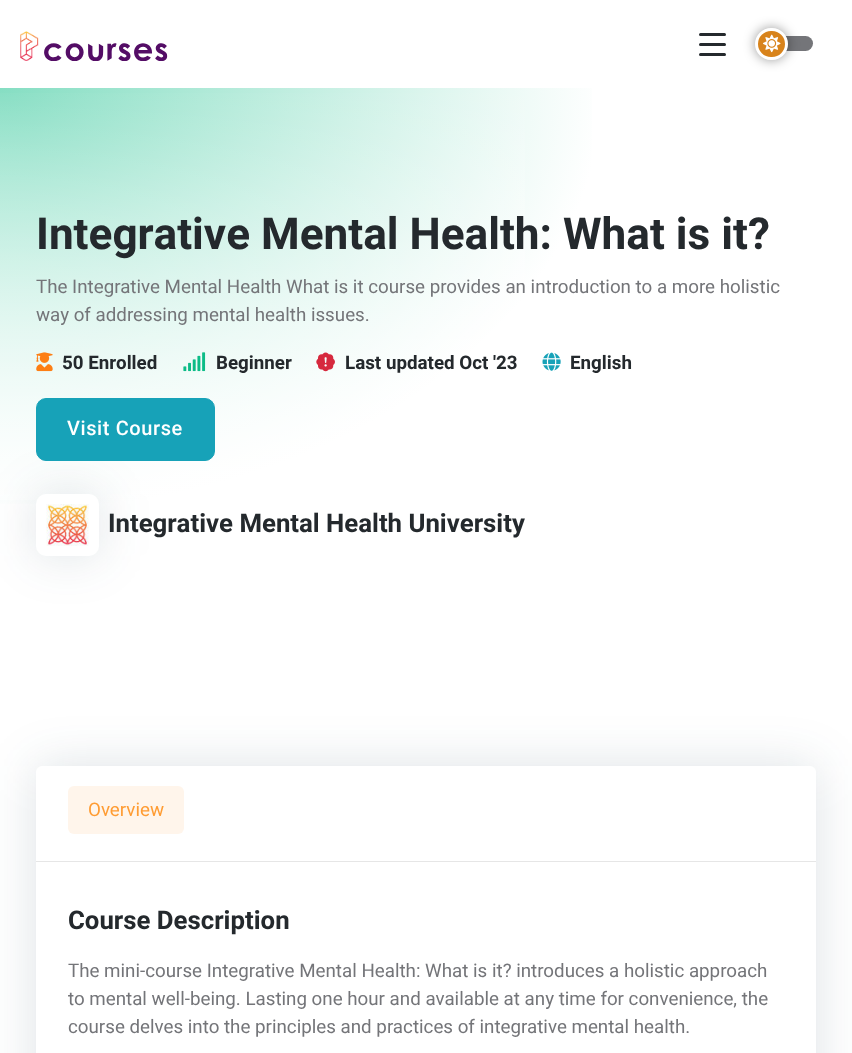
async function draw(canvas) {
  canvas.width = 852;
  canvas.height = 1053;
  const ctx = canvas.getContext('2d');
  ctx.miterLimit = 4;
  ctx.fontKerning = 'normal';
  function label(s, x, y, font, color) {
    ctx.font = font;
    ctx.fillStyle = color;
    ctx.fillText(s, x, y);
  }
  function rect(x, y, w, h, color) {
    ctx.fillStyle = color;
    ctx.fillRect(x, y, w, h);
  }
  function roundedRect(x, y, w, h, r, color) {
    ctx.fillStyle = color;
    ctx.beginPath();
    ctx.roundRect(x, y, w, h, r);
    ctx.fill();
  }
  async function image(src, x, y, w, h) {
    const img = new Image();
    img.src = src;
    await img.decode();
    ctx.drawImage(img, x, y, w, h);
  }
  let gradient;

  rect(0, 0, 852, 1053, '#fff');
  await image('assets/img1.png', 20, 31, 148, 30);
  roundedRect(699, 33, 27, 3, 1.5, '#24292d');
  roundedRect(699, 43, 27, 3, 1.5, '#24292d');
  roundedRect(699, 53, 27, 3, 1.5, '#24292d');
  roundedRect(760, 36, 53, 15, 7.5, '#747579');
  ctx.fillStyle = '#00000066';
  ctx.filter = 'blur(6px)';
  ctx.beginPath();
  ctx.roundRect(755, 28, 33, 32, 16);
  ctx.fill();
  ctx.filter = 'none';
  ctx.fillStyle = '#d8831b';
  ctx.beginPath();
  ctx.roundRect(756.5, 29.5, 30, 29, 14.5);
  ctx.fill();
  ctx.strokeStyle = '#fff';
  ctx.lineWidth = 3;
  ctx.stroke();
  await image('assets/img2.png', 763, 34, 18, 19);
  gradient = ctx.createRadialGradient(0, 125.3, 0, 0, 125.3, 1206);
  gradient.addColorStop(0, '#86dec3');
  gradient.addColorStop(0.5, '#fff');
  ctx.fillStyle = gradient;
  ctx.beginPath();
  ctx.rect(0, 88, 592, 416);
  ctx.save();
  ctx.clip();
  ctx.scale(1, 847 / 1206);
  ctx.fillRect(0, 0, 852, 1500);
  ctx.restore();
  gradient = ctx.createLinearGradient(426, 87, 426, 686);
  gradient.addColorStop(0, '#ffffff03');
  gradient.addColorStop(0.85, '#fff');
  ctx.fillStyle = gradient;
  ctx.fillRect(0, 93, 525, 407);
  label('Integrative Mental Health: What is it?', 36, 249, 'bold 44.1px Heebo', '#24292d');
  label('The Integrative Mental Health What is it course provides an introduction to a more holistic', 36, 293, '18.75px Roboto', '#747579');
  label('way of addressing mental health issues.', 36, 321, '18.75px Roboto', '#747579');
  await image('assets/img3.png', 36, 352, 17, 20);
  label('50 Enrolled', 62, 369, 'bold 18.75px Heebo', '#24292d');
  await image('assets/img4.png', 183, 352, 23, 20);
  label('Beginner', 216, 369, 'bold 18.75px Heebo', '#24292d');
  await image('assets/img5.png', 316, 352, 19, 20);
  label('Last updated Oct \'23', 345, 369, 'bold 18.75px Heebo', '#24292d');
  await image('assets/img6.png', 542, 352, 19, 19);
  label('English', 570, 369, 'bold 18.75px Heebo', '#24292d');
  ctx.fillStyle = '#1d3a5326';
  ctx.filter = 'blur(25px)';
  ctx.beginPath();
  ctx.roundRect(36, 494, 63, 62, 10);
  ctx.fill();
  ctx.filter = 'none';
  ctx.fillStyle = '#17a2b8';
  ctx.beginPath();
  ctx.roundRect(36.5, 398.5, 178, 62, 9.5);
  ctx.fill();
  ctx.strokeStyle = '#17a2b8';
  ctx.lineWidth = 1;
  ctx.stroke();
  ctx.letterSpacing = '0.6px';
  label('Visit Course', 67, 435, '500 20px Roboto', '#fff');
  roundedRect(36, 494, 63, 62, 10, '#fff');
  await image('assets/img7.png', 46, 504, 43, 42);
  ctx.letterSpacing = '0px';
  label('Integrative Mental Health University', 108, 532, 'bold 25.75px Heebo', '#24292d');
  ctx.fillStyle = '#1d3a5326';
  ctx.filter = 'blur(25px)';
  ctx.beginPath();
  ctx.roundRect(36, 766, 780, 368, 6);
  ctx.fill();
  ctx.filter = 'none';
  roundedRect(36, 766, 780, 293, 6, '#fff');
  rect(36, 861, 780, 1, '#e6e6e6');
  roundedRect(68, 786, 116, 48, 6, '#fff5eb');
  label('Overview', 88, 816, '18.75px Roboto', '#ff9c33');
  label('Course Description', 68, 929, 'bold 25.75px Heebo', '#24292d');
  label('The mini-course Integrative Mental Health: What is it? introduces a holistic approach', 68, 977, '18.75px Roboto', '#747579');
  label('to mental well-being. Lasting one hour and available at any time for convenience, the', 68, 1005, '18.75px Roboto', '#747579');
  label('course delves into the principles and practices of integrative mental health.', 68, 1033, '18.75px Roboto', '#747579');
}

draw(document.querySelector('canvas'));
